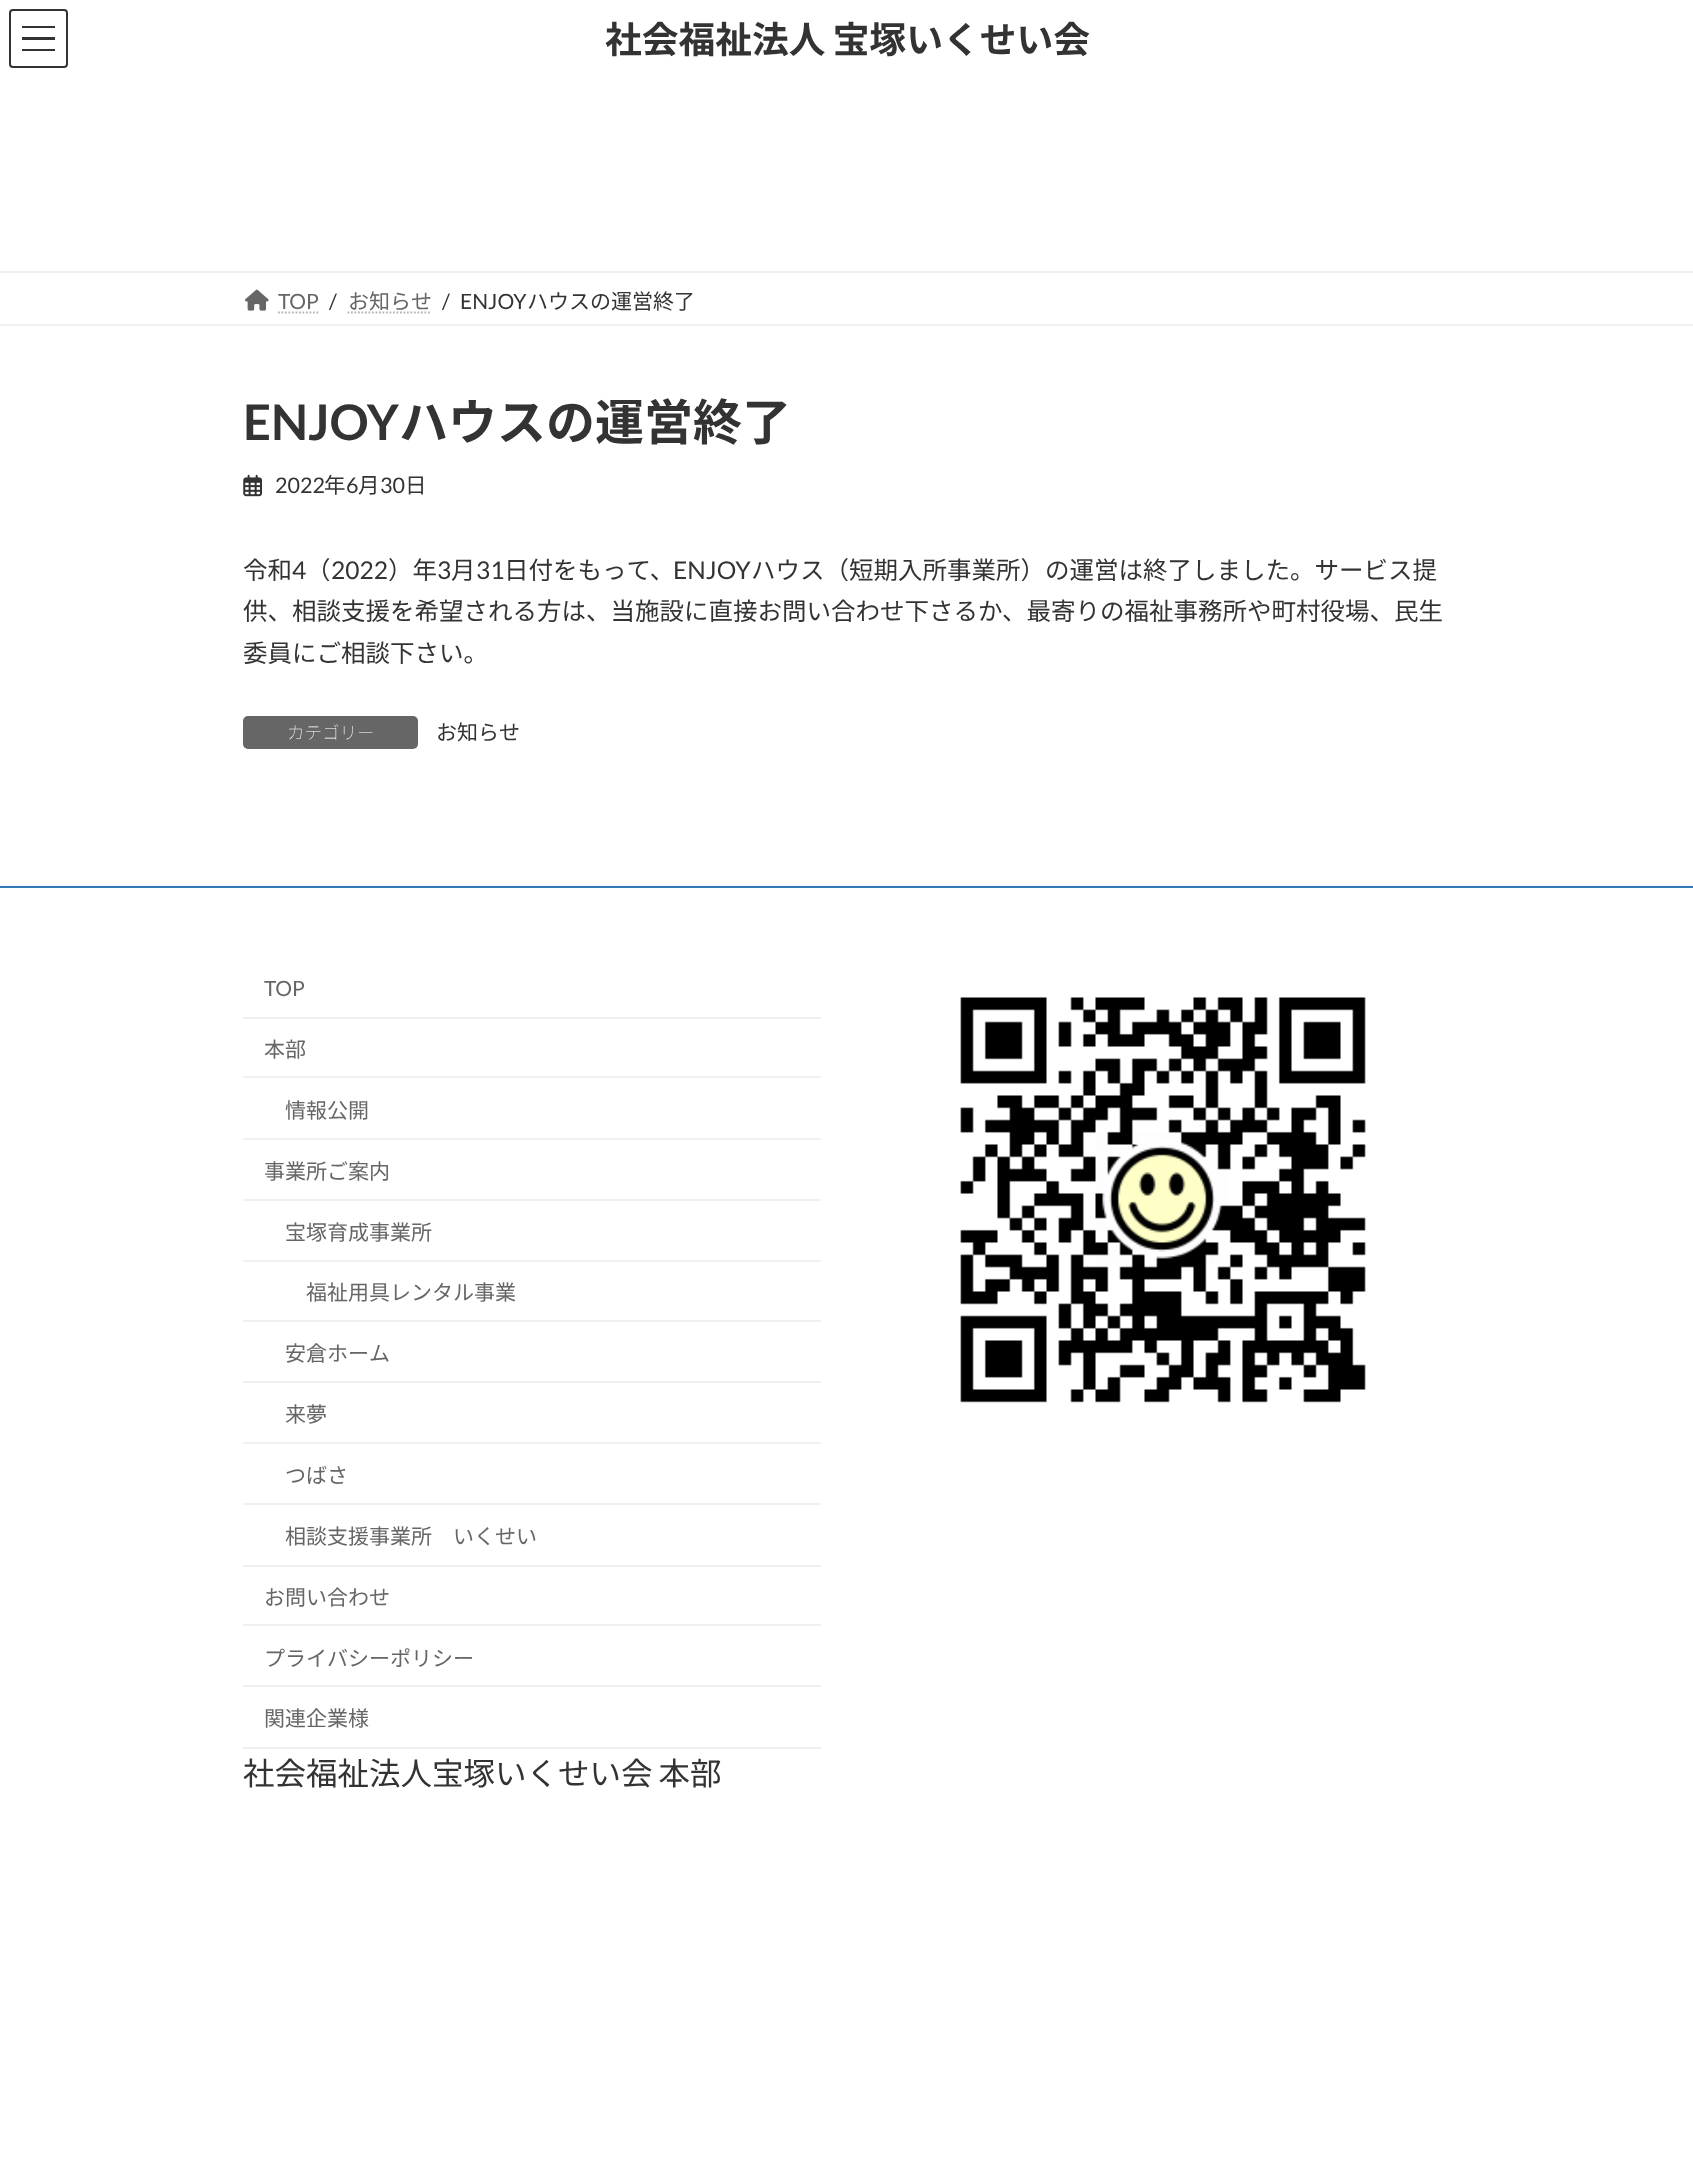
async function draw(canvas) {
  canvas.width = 1693;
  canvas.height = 2174;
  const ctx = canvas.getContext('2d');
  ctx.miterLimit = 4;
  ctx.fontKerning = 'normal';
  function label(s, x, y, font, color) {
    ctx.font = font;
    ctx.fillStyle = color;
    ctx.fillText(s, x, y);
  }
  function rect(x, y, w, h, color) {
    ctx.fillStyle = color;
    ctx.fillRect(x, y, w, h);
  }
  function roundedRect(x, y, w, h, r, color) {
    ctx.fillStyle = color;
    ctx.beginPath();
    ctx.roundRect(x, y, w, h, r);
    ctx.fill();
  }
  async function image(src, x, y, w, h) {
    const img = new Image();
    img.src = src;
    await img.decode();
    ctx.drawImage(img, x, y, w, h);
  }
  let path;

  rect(0, 0, 1693, 2174, '#fff');
  rect(22, 26, 33, 2, '#333');
  rect(22, 37, 33, 3, '#333');
  rect(22, 49, 33, 2, '#333');
  ctx.beginPath();
  ctx.roundRect(10, 10, 57, 57, 3);
  ctx.strokeStyle = '#333';
  ctx.lineWidth = 2;
  ctx.stroke();
  ctx.wordSpacing = '-1px';
  label('社会福祉法人 宝塚いくせい会', 605, 53, 'bold 36.75px Noto Sans JP', '#333');
  rect(0, 271, 1693, 2, '#f0f0f0');
  rect(0, 324, 1693, 2, '#f0f0f0');
  await image('assets/img1.png', 245, 289, 24, 22);
  ctx.wordSpacing = '0px';
  label('TOP', 278, 309, '21px Lato', '#666');
  path = new Path2D('M278 312.5H319');
  ctx.strokeStyle = '#b3b3b3';
  ctx.lineWidth = 1.8;
  ctx.setLineDash([1.75, 1.75]);
  ctx.stroke(path);
  label('/', 329, 309, '21px Lato', '#333');
  label('お知らせ', 348, 309, '21px Noto Sans JP', '#666');
  path = new Path2D('M347.5 312.5H431.5');
  ctx.stroke(path);
  label('/', 442, 309, '21px Lato', '#333');
  label('ENJOY', 460, 309, '21px Lato', '#333');
  label('ハウスの運営終了', 527, 309, '21px Noto Sans JP', '#333');
  label('ENJOY', 243, 440, 'bold 49px Lato', '#333');
  label('ハウスの運営終了', 399, 440, 'bold 49px Noto Sans JP', '#333');
  await image('assets/img2.png', 243, 474, 19, 23);
  label('2022', 275, 493, '21.5px Lato', '#333');
  label('年', 324, 493, '21.5px Noto Sans JP', '#333');
  label('6', 346, 493, '21.5px Lato', '#333');
  label('月', 358, 493, '21.5px Noto Sans JP', '#333');
  label('30', 380, 493, '21.5px Lato', '#333');
  label('日', 405, 493, '21.5px Noto Sans JP', '#333');
  label('令和', 243, 579, '24.5px Noto Sans JP', '#333');
  label('4', 292, 579, '24.5px Lato', '#333');
  label('（', 306, 579, '24.5px Noto Sans JP', '#333');
  label('2022', 331, 579, '24.5px Lato', '#333');
  label('）年', 388, 579, '24.5px Noto Sans JP', '#333');
  label('3', 437, 579, '24.5px Lato', '#333');
  label('月', 451, 579, '24.5px Noto Sans JP', '#333');
  label('31', 476, 579, '24.5px Lato', '#333');
  label('日付をもって、', 504, 579, '24.5px Noto Sans JP', '#333');
  label('ENJOY', 673, 579, '24.5px Lato', '#333');
  label('ハウス（短期入所事業所）の運営は終了しました。サービス提', 751, 579, '24.5px Noto Sans JP', '#333');
  label('供、相談支援を希望される方は、当施設に直接お問い合わせ下さるか、最寄りの福祉事務所や町村役場、民生', 243, 620, '24.5px Noto Sans JP', '#333');
  label('委員にご相談下さい。', 243, 662, '24.5px Noto Sans JP', '#333');
  roundedRect(243, 716, 175, 33, 5, '#666');
  label('カテゴリー', 287, 739, '100 17.5px Noto Sans JP', '#fff');
  label('お知らせ', 436, 740, '21px Noto Sans JP', '#333');
  rect(0, 886, 1693, 2, '#337ab7');
  rect(243, 1017, 578, 2, '#f0f0f0');
  label('TOP', 264, 996, '21px Lato', '#666');
  rect(243, 1076, 578, 2, '#f0f0f0');
  label('本部', 264, 1057, '21px Noto Sans JP', '#666');
  rect(243, 1138, 578, 2, '#f0f0f0');
  label('情報公開', 285, 1118, '21px Noto Sans JP', '#666');
  rect(243, 1199, 578, 2, '#f0f0f0');
  label('事業所ご案内', 264, 1179, '21px Noto Sans JP', '#666');
  rect(243, 1260, 578, 2, '#f0f0f0');
  label('宝塚育成事業所', 285, 1240, '21px Noto Sans JP', '#666');
  rect(243, 1320, 578, 2, '#f0f0f0');
  label('福祉用具レンタル事業', 306, 1300, '21px Noto Sans JP', '#666');
  rect(243, 1381, 578, 2, '#f0f0f0');
  label('安倉ホーム', 285, 1361, '21px Noto Sans JP', '#666');
  rect(243, 1442, 578, 2, '#f0f0f0');
  label('来夢', 285, 1422, '21px Noto Sans JP', '#666');
  rect(243, 1503, 578, 2, '#f0f0f0');
  label('つばさ', 285, 1483, '21px Noto Sans JP', '#666');
  rect(243, 1565, 578, 2, '#f0f0f0');
  label('相談支援事業所　いくせい', 285, 1544, '21px Noto Sans JP', '#666');
  rect(243, 1624, 578, 2, '#f0f0f0');
  label('お問い合わせ', 264, 1605, '21px Noto Sans JP', '#666');
  rect(243, 1685, 578, 2, '#f0f0f0');
  label('プライバシーポリシー', 264, 1666, '21px Noto Sans JP', '#666');
  rect(243, 1747, 578, 2, '#f0f0f0');
  label('関連企業様', 264, 1726, '21px Noto Sans JP', '#666');
  await image('assets/img3.png', 960, 997, 406, 406);
  ctx.wordSpacing = '-1px';
  label('社会福祉法人宝塚いくせい会 本部', 243, 1785, '31.5px Noto Sans JP', '#333');
}

draw(document.querySelector('canvas'));
